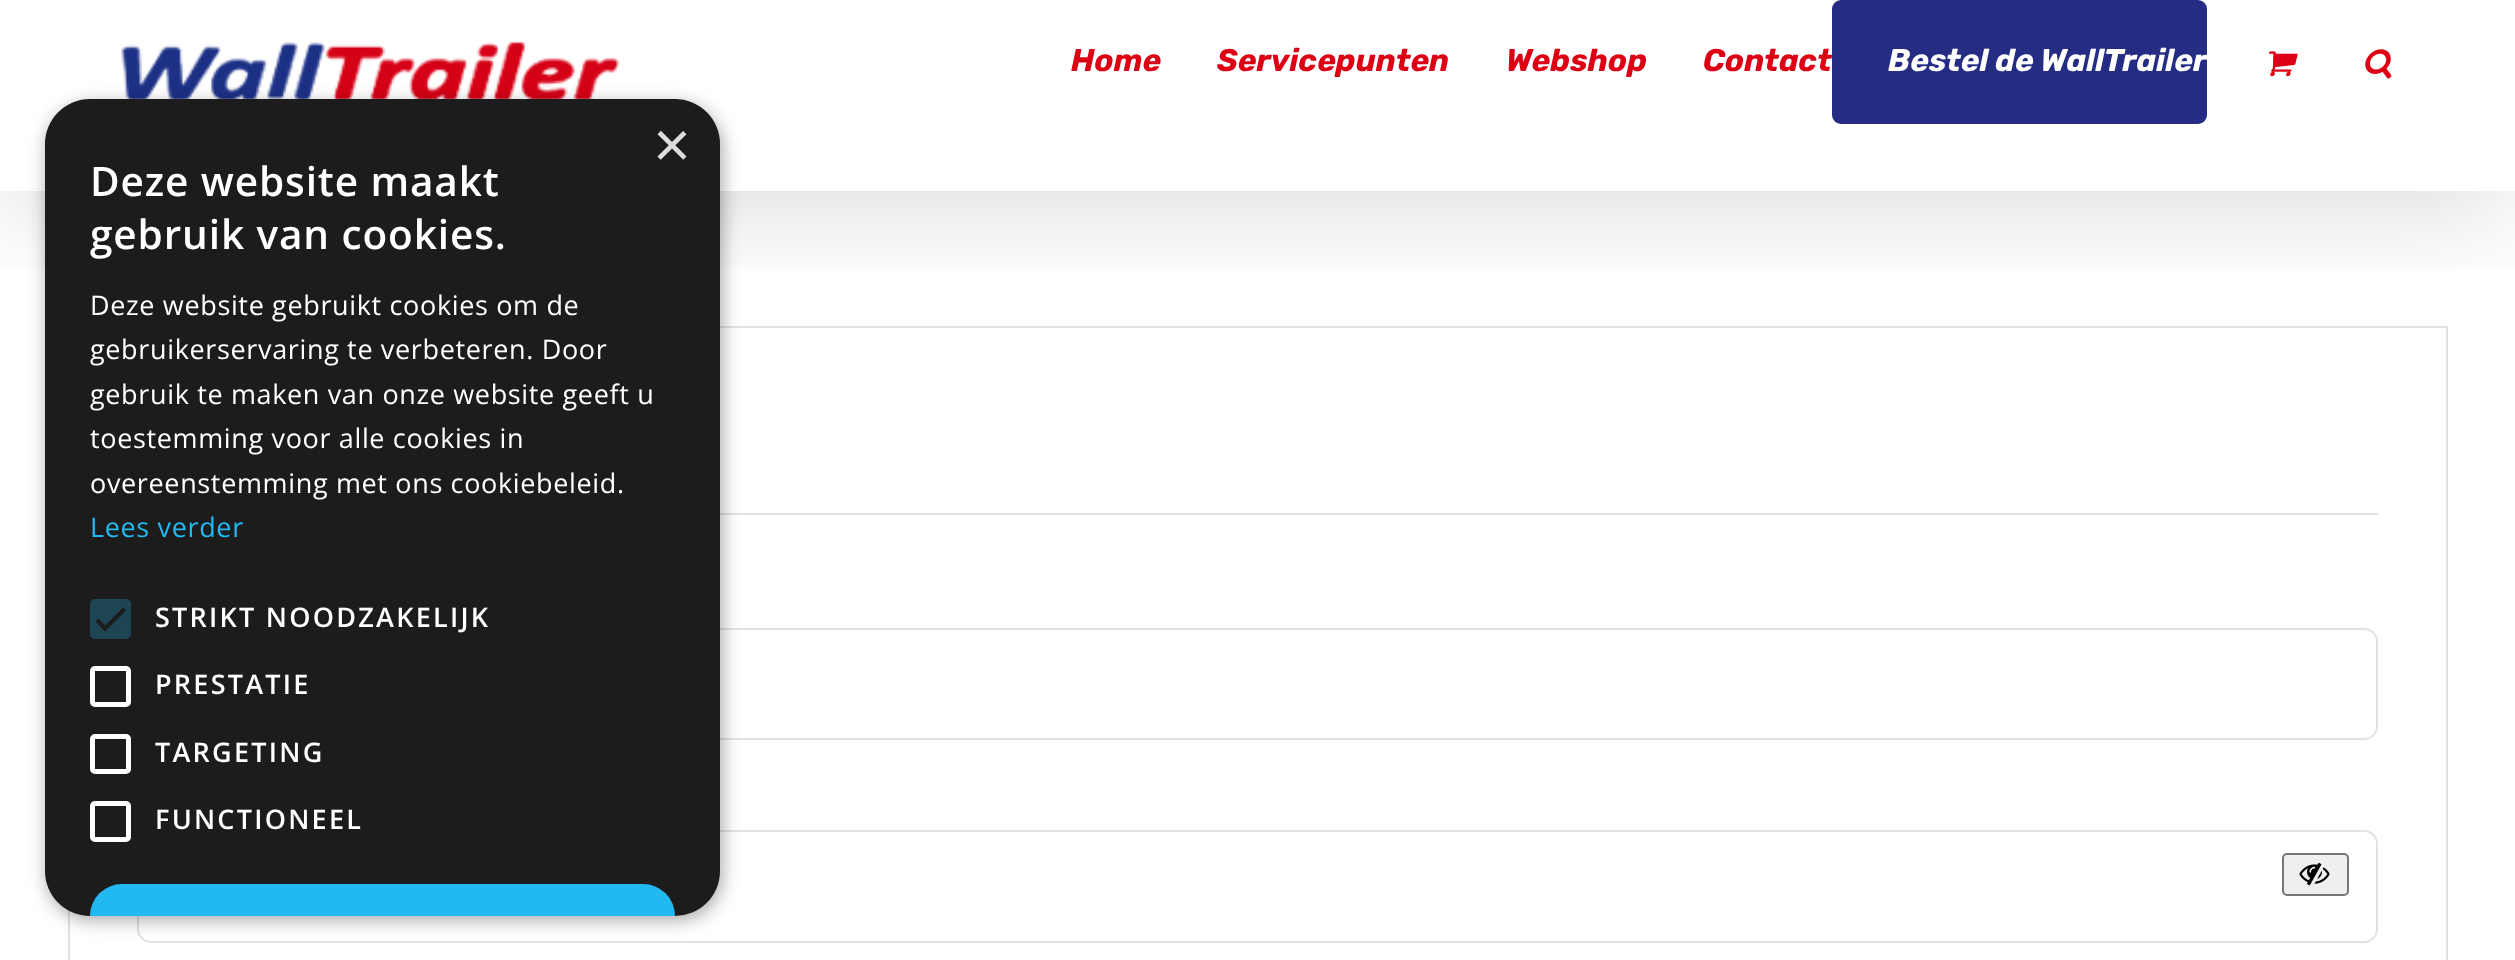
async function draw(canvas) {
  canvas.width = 2515;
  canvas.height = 960;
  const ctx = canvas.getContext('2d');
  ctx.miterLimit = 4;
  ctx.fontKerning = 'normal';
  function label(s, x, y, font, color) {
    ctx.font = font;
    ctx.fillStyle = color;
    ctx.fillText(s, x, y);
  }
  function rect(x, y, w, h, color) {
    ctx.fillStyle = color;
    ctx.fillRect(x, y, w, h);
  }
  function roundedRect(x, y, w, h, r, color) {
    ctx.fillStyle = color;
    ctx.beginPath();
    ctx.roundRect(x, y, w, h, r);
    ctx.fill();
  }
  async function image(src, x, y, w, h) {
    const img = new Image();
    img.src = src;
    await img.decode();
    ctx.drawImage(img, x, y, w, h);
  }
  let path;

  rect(0, 0, 2515, 960, '#fff');
  ctx.strokeStyle = '#e2e2e2';
  ctx.lineWidth = 2;
  ctx.strokeRect(69, 327, 2378, 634);
  ctx.save();
  ctx.beginPath();
  ctx.rect(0, 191, 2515, 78);
  ctx.clip();
  ctx.fillStyle = '#00000024';
  ctx.filter = 'blur(56px)';
  ctx.beginPath();
  ctx.rect(5, 27, 2506, 182);
  ctx.fill();
  ctx.filter = 'none';
  ctx.restore();
  await image('assets/img1.png', 121, 40, 499, 59);
  label('Home', 1071, 71, 'italic bold 31.5px Rubik', '#dd0014');
  label('Servicepunten', 1217, 71, 'italic bold 31.5px Rubik', '#dd0014');
  label('Webshop', 1506, 71, 'italic bold 31.5px Rubik', '#dd0014');
  label('Contact', 1703, 71, 'italic bold 31.5px Rubik', '#dd0014');
  roundedRect(1832, 0, 375, 124, 9, '#242d83');
  label('Bestel de WallTrailer', 1888, 71, 'italic bold 31.5px Rubik', '#fff');
  await image('assets/img2.png', 2268, 51, 30, 26);
  await image('assets/img3.png', 2365, 49, 27, 30);
  rect(720, 513, 1658, 2, '#e2e2e2');
  ctx.beginPath();
  ctx.roundRect(138, 629, 2239, 110, 13);
  ctx.stroke();
  ctx.beginPath();
  ctx.roundRect(138, 831, 2239, 111, 13);
  ctx.stroke();
  ctx.fillStyle = '#efefef';
  ctx.beginPath();
  ctx.roundRect(2283, 854, 65, 41, 4);
  ctx.fill();
  ctx.strokeStyle = '#767676';
  ctx.stroke();
  await image('assets/img4.png', 2299, 862, 31, 24);
  ctx.fillStyle = '#00000059';
  ctx.filter = 'blur(9px)';
  ctx.beginPath();
  ctx.roundRect(47, 104, 675, 816, 45);
  ctx.fill();
  ctx.filter = 'none';
  roundedRect(45, 99, 675, 817, 45, '#1c1c1c');
  label('×', 653, 167, '65px Liberation Sans', '#ddd');
  ctx.letterSpacing = '0.9px';
  label('Deze website maakt', 90, 196, '600 40.5px Open Sans', '#fff');
  label('gebruik van cookies.', 90, 249, '600 40.5px Open Sans', '#fff');
  ctx.letterSpacing = '0.65px';
  label('Deze website gebruikt cookies om de', 90, 315, '27px Open Sans', '#fff');
  label('gebruikerservaring te verbeteren. Door', 90, 359, '27px Open Sans', '#fff');
  label('gebruik te maken van onze website geeft u', 90, 404, '27px Open Sans', '#fff');
  label('toestemming voor alle cookies in', 90, 448, '27px Open Sans', '#fff');
  label('overeenstemming met ons cookiebeleid.', 90, 493, '27px Open Sans', '#fff');
  label('Lees verder', 90, 537, '27px Open Sans', '#22b8f0');
  roundedRect(90, 599, 41, 40, 5, '#1e4553');
  path = new Path2D('M97 620L105 628.5L124.5 609');
  ctx.strokeStyle = '#1c1c1c';
  ctx.lineWidth = 4.1;
  ctx.stroke(path);
  ctx.letterSpacing = '2.25px';
  label('STRIKT NOODZAKELIJK', 155, 627, '600 27px Open Sans', '#fff');
  ctx.beginPath();
  ctx.roundRect(92.5, 668.5, 36, 36, 2.5);
  ctx.strokeStyle = '#fff';
  ctx.lineWidth = 5;
  ctx.stroke();
  label('PRESTATIE', 155, 694, '600 27px Open Sans', '#fff');
  ctx.beginPath();
  ctx.roundRect(92.5, 736.5, 36, 35, 2.5);
  ctx.stroke();
  label('TARGETING', 155, 762, '600 27px Open Sans', '#fff');
  ctx.beginPath();
  ctx.roundRect(92.5, 803.5, 36, 36, 2.5);
  ctx.stroke();
  label('FUNCTIONEEL', 155, 829, '600 27px Open Sans', '#fff');
  ctx.fillStyle = '#22b8f0';
  ctx.beginPath();
  ctx.roundRect(90, 884, 585, 32, [43, 43, 0, 0]);
  ctx.fill();
}

draw(document.querySelector('canvas'));
